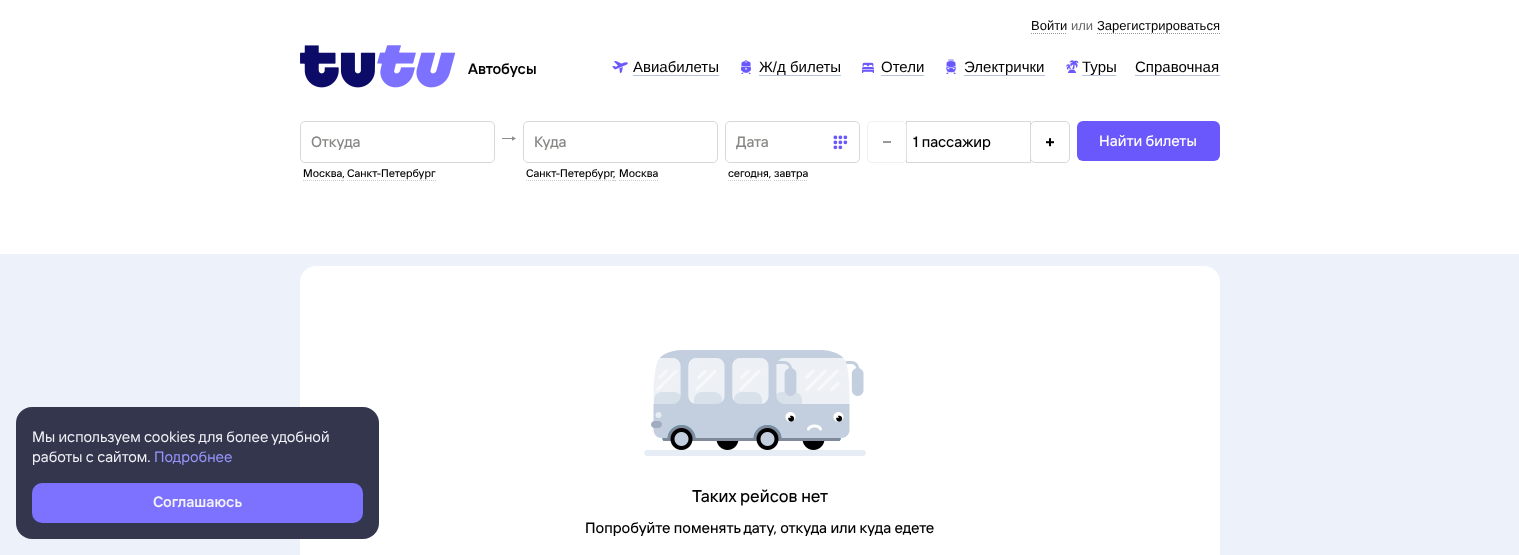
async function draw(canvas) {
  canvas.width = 1519;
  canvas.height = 555;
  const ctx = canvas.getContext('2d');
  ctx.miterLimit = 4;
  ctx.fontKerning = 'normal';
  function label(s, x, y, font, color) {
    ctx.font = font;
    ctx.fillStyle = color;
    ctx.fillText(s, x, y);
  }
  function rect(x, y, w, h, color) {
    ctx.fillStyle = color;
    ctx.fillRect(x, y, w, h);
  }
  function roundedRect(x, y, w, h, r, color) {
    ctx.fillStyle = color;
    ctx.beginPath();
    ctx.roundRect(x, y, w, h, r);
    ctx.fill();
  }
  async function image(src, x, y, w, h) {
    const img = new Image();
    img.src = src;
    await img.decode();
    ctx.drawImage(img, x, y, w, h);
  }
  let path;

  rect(0, 0, 1519, 555, '#fff');
  label('Войти', 1031, 30, '13px Liberation Sans', '#000');
  path = new Path2D('M1031 33.5H1067');
  ctx.strokeStyle = '#999';
  ctx.setLineDash([1, 1]);
  ctx.stroke(path);
  label('или', 1071, 30, '13px Liberation Sans', '#666');
  label('Зарегистрироваться', 1097, 30, '13px Liberation Sans', '#000');
  path = new Path2D('M1097 33.5H1220');
  ctx.stroke(path);
  await image('assets/img1.png', 300, 45, 155, 43);
  label('Автобусы', 468, 74, '600 15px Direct', '#000');
  await image('assets/img2.png', 612, 61, 16, 12);
  label('Авиабилеты', 633, 72, '15px Liberation Sans', '#000');
  rect(633, 75, 86, 1, '#b5c1d6');
  await image('assets/img3.png', 741, 60, 10, 14);
  label('Ж/д билеты', 759, 72, '15px Liberation Sans', '#000');
  rect(759, 75, 82, 1, '#b5c1d6');
  await image('assets/img4.png', 862, 62, 12, 11);
  label('Отели', 881, 72, '15px Liberation Sans', '#000');
  rect(881, 75, 43, 1, '#b5c1d6');
  await image('assets/img5.png', 946, 59, 10, 15);
  rect(964, 75, 81, 1, '#b5c1d6');
  label('Электрички', 964, 72, '15px Liberation Sans', '#000');
  await image('assets/img6.png', 1066, 60, 13, 13);
  rect(1082, 75, 34, 1, '#b5c1d6');
  label('Туры', 1082, 72, '15px Liberation Sans', '#000');
  rect(1135, 75, 85, 1, '#b5c1d6');
  label('Справочная', 1135, 72, '15px Liberation Sans', '#000');
  ctx.beginPath();
  ctx.roundRect(300.5, 121.5, 194, 41, 4.5);
  ctx.strokeStyle = '#d8d8d8';
  ctx.setLineDash([]);
  ctx.stroke();
  label('Откуда', 311, 147, '500 15px Direct', '#868684');
  label('Москва,', 303, 177, '500 11px Direct', '#000');
  path = new Path2D('M303 180.5H342');
  ctx.strokeStyle = '#ccc';
  ctx.setLineDash([1, 1]);
  ctx.stroke(path);
  rect(342, 180, 2, 1, '#ccc');
  label('Санкт-Петербург', 347, 177, '500 11px Direct', '#000');
  path = new Path2D('M347 180.5H436');
  ctx.stroke(path);
  await image('assets/img7.png', 502, 136, 14, 5);
  ctx.beginPath();
  ctx.roundRect(523.5, 121.5, 194, 41, 4.5);
  ctx.strokeStyle = '#d8d8d8';
  ctx.setLineDash([]);
  ctx.stroke();
  label('Куда', 534, 147, '500 15px Direct', '#868684');
  label('Санкт-Петербург', 526, 177, '500 11px Direct', '#000');
  label('Москва', 619, 177, '500 11px Direct', '#000');
  path = new Path2D('M619 180.5H658');
  ctx.strokeStyle = '#ccc';
  ctx.setLineDash([1, 1]);
  ctx.stroke(path);
  label(',', 613, 177, '500 11px Direct', '#000');
  path = new Path2D('M526 180.5H613');
  ctx.stroke(path);
  rect(613, 180, 3, 1, '#ccc');
  ctx.beginPath();
  ctx.roundRect(725.5, 121.5, 134, 41, 4.5);
  ctx.strokeStyle = '#d8d8d8';
  ctx.setLineDash([]);
  ctx.stroke();
  ctx.save();
  ctx.beginPath();
  ctx.rect(736, 132, 101, 19);
  ctx.clip();
  label('Дата', 736, 147, '500 15px Direct', '#868684');
  ctx.restore();
  await image('assets/img8.png', 833, 135, 15, 15);
  label('сегодня,', 728, 177, '500 11px Direct', '#000');
  path = new Path2D('M728 180.5H771');
  ctx.strokeStyle = '#ccc';
  ctx.setLineDash([1, 1]);
  ctx.stroke(path);
  label('завтра', 774, 177, '500 11px Direct', '#000');
  path = new Path2D('M774 180.5H808');
  ctx.stroke(path);
  ctx.strokeStyle = '#d8d8d8';
  ctx.setLineDash([]);
  ctx.strokeRect(906.5, 121.5, 124, 41);
  roundedRect(867, 121, 40, 42, 5, '#ffffff66');
  ctx.beginPath();
  ctx.roundRect(867.5, 121.5, 39, 41, 4.5);
  ctx.strokeStyle = '#d8d8d866';
  ctx.stroke();
  rect(883, 141, 8, 2, '#999');
  label('1 пассажир', 913, 147, '500 15px Direct', '#000');
  ctx.fillStyle = '#fff';
  ctx.beginPath();
  ctx.roundRect(1030.5, 121.5, 39, 41, 4.5);
  ctx.fill();
  ctx.strokeStyle = '#d8d8d8';
  ctx.stroke();
  await image('assets/img9.png', 1046, 138, 8, 9);
  roundedRect(1077, 121, 143, 40, 6, '#6b58fc');
  label('Найти билеты', 1099, 146, '500 15px Direct', '#fff');
  rect(0, 254, 1519, 301, '#edf2fa');
  roundedRect(300, 266, 920, 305, 16, '#fff');
  roundedRect(16, 407, 363, 132, 16, '#33364d');
  label('Мы используем cookies для более удобной', 32, 442, '15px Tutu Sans', '#f2f2f7');
  label('работы с сайтом.', 32, 462, '15px Tutu Sans', '#f2f2f7');
  label('Подробнее', 154, 462, '15px Tutu Sans', '#9996ff');
  roundedRect(32, 483, 331, 40, 10, '#7d71ff');
  label('Соглашаюсь', 153, 507, '600 15px Direct', '#f2f2f7');
  await image('assets/img10.png', 644, 350, 222, 106);
  label('Таких рейсов нет', 692, 502, '500 17px Direct', '#000');
  label('Попробуйте поменять дату, откуда или куда едете', 585, 533, '500 15px Direct', '#000');
}

draw(document.querySelector('canvas'));
